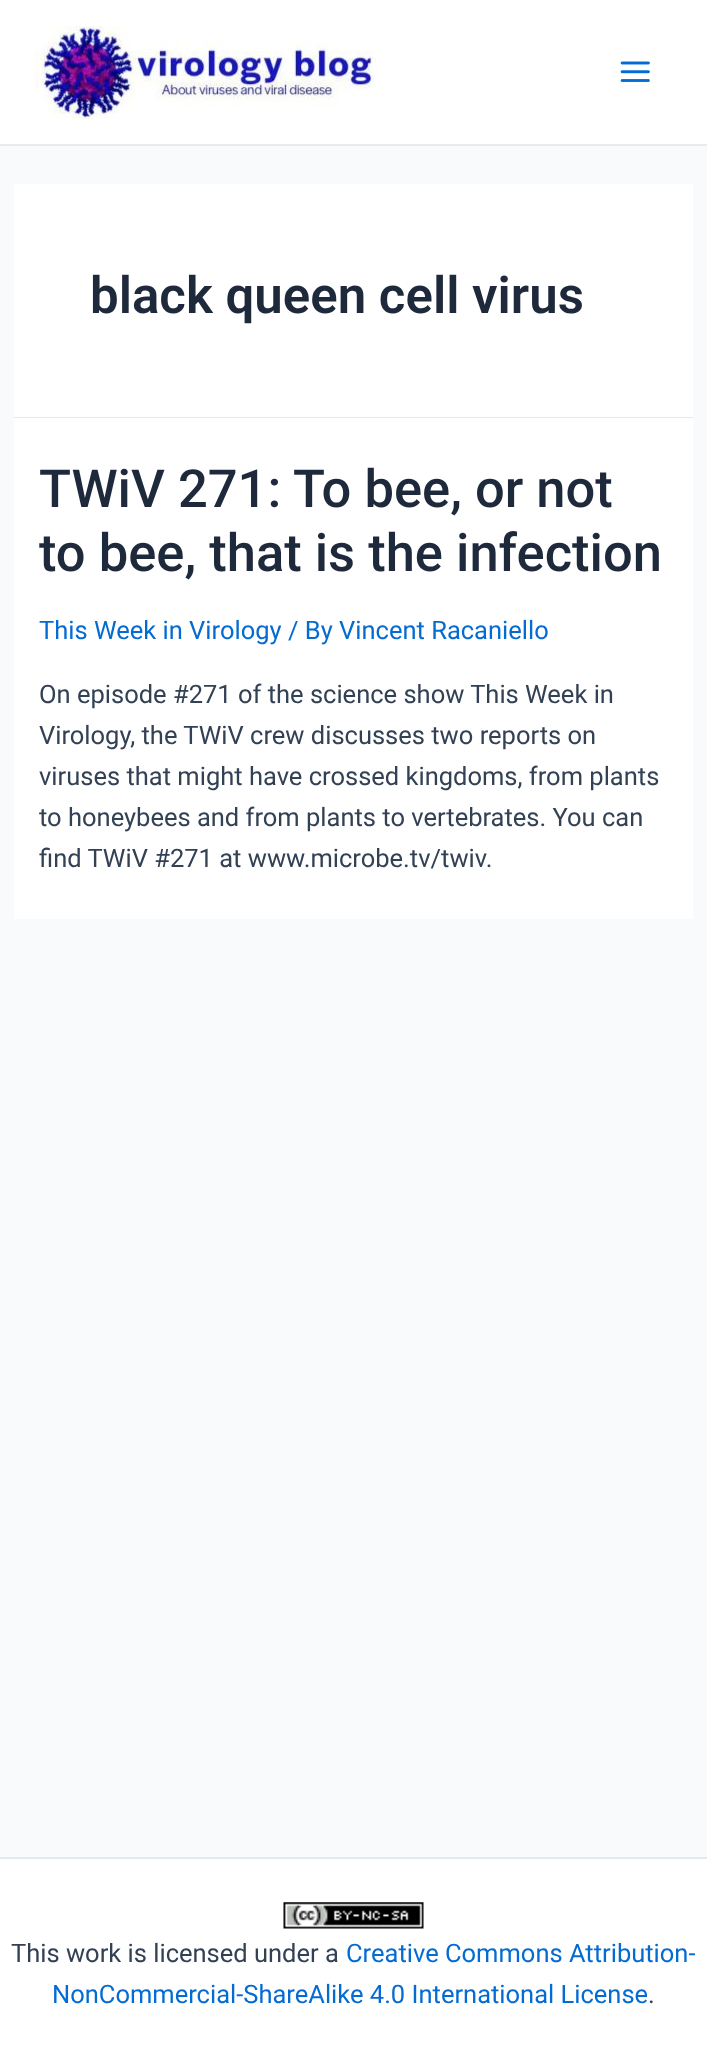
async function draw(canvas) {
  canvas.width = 707;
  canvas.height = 2068;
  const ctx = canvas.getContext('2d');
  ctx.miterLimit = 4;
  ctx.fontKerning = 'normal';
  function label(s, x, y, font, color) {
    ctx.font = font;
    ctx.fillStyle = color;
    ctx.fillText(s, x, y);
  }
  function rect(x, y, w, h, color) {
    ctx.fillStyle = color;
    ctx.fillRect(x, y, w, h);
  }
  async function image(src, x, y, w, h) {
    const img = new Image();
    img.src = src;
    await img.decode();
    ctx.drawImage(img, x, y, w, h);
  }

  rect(0, 0, 707, 2068, '#f9fafb');
  rect(0, 0, 707, 144, '#fff');
  rect(0, 144, 707, 2, '#eaeaea');
  await image('assets/img1.png', 35, 26, 341, 93);
  await image('assets/img2.png', 620, 61, 30, 21);
  rect(14, 184, 679, 233, '#fff');
  rect(14, 417, 679, 1, '#e2e8f0');
  label('black queen cell virus', 90, 313, '600 51px Roboto', '#1e293b');
  rect(14, 418, 679, 501, '#fff');
  label('TWiV 271: To bee, or not', 39, 507, '500 52.5px Roboto', '#1e293b');
  label('to bee, that is the infection', 39, 571, '500 52.5px Roboto', '#1e293b');
  label('This Week in Virology / By Vincent Racaniello', 39, 639, '25.5px Roboto', '#046bd2');
  label('On episode #271 of the science show This Week in', 39, 703, '25.5px Roboto', '#334155');
  label('Virology, the TWiV crew discusses two reports on', 39, 744, '25.5px Roboto', '#334155');
  label('viruses that might have crossed kingdoms, from plants', 39, 785, '25.5px Roboto', '#334155');
  label('to honeybees and from plants to vertebrates. You can', 39, 826, '25.5px Roboto', '#334155');
  label('find TWiV #271 at www.microbe.tv/twiv.', 39, 867, '25.5px Roboto', '#334155');
  rect(0, 1859, 707, 209, '#fff');
  rect(0, 1857, 707, 2, '#e2e8f0');
  await image('assets/img3.png', 283, 1902, 141, 27);
  label('This work is licensed under a', 11, 1962, '25.5px Roboto', '#334155');
  label('Creative Commons Attribution-', 346, 1962, '25.5px Roboto', '#046bd2');
  label('NonCommercial-ShareAlike 4.0 International License', 52, 2003, '25.5px Roboto', '#046bd2');
  label('.', 648, 2003, '25.5px Roboto', '#334155');
}

draw(document.querySelector('canvas'));
